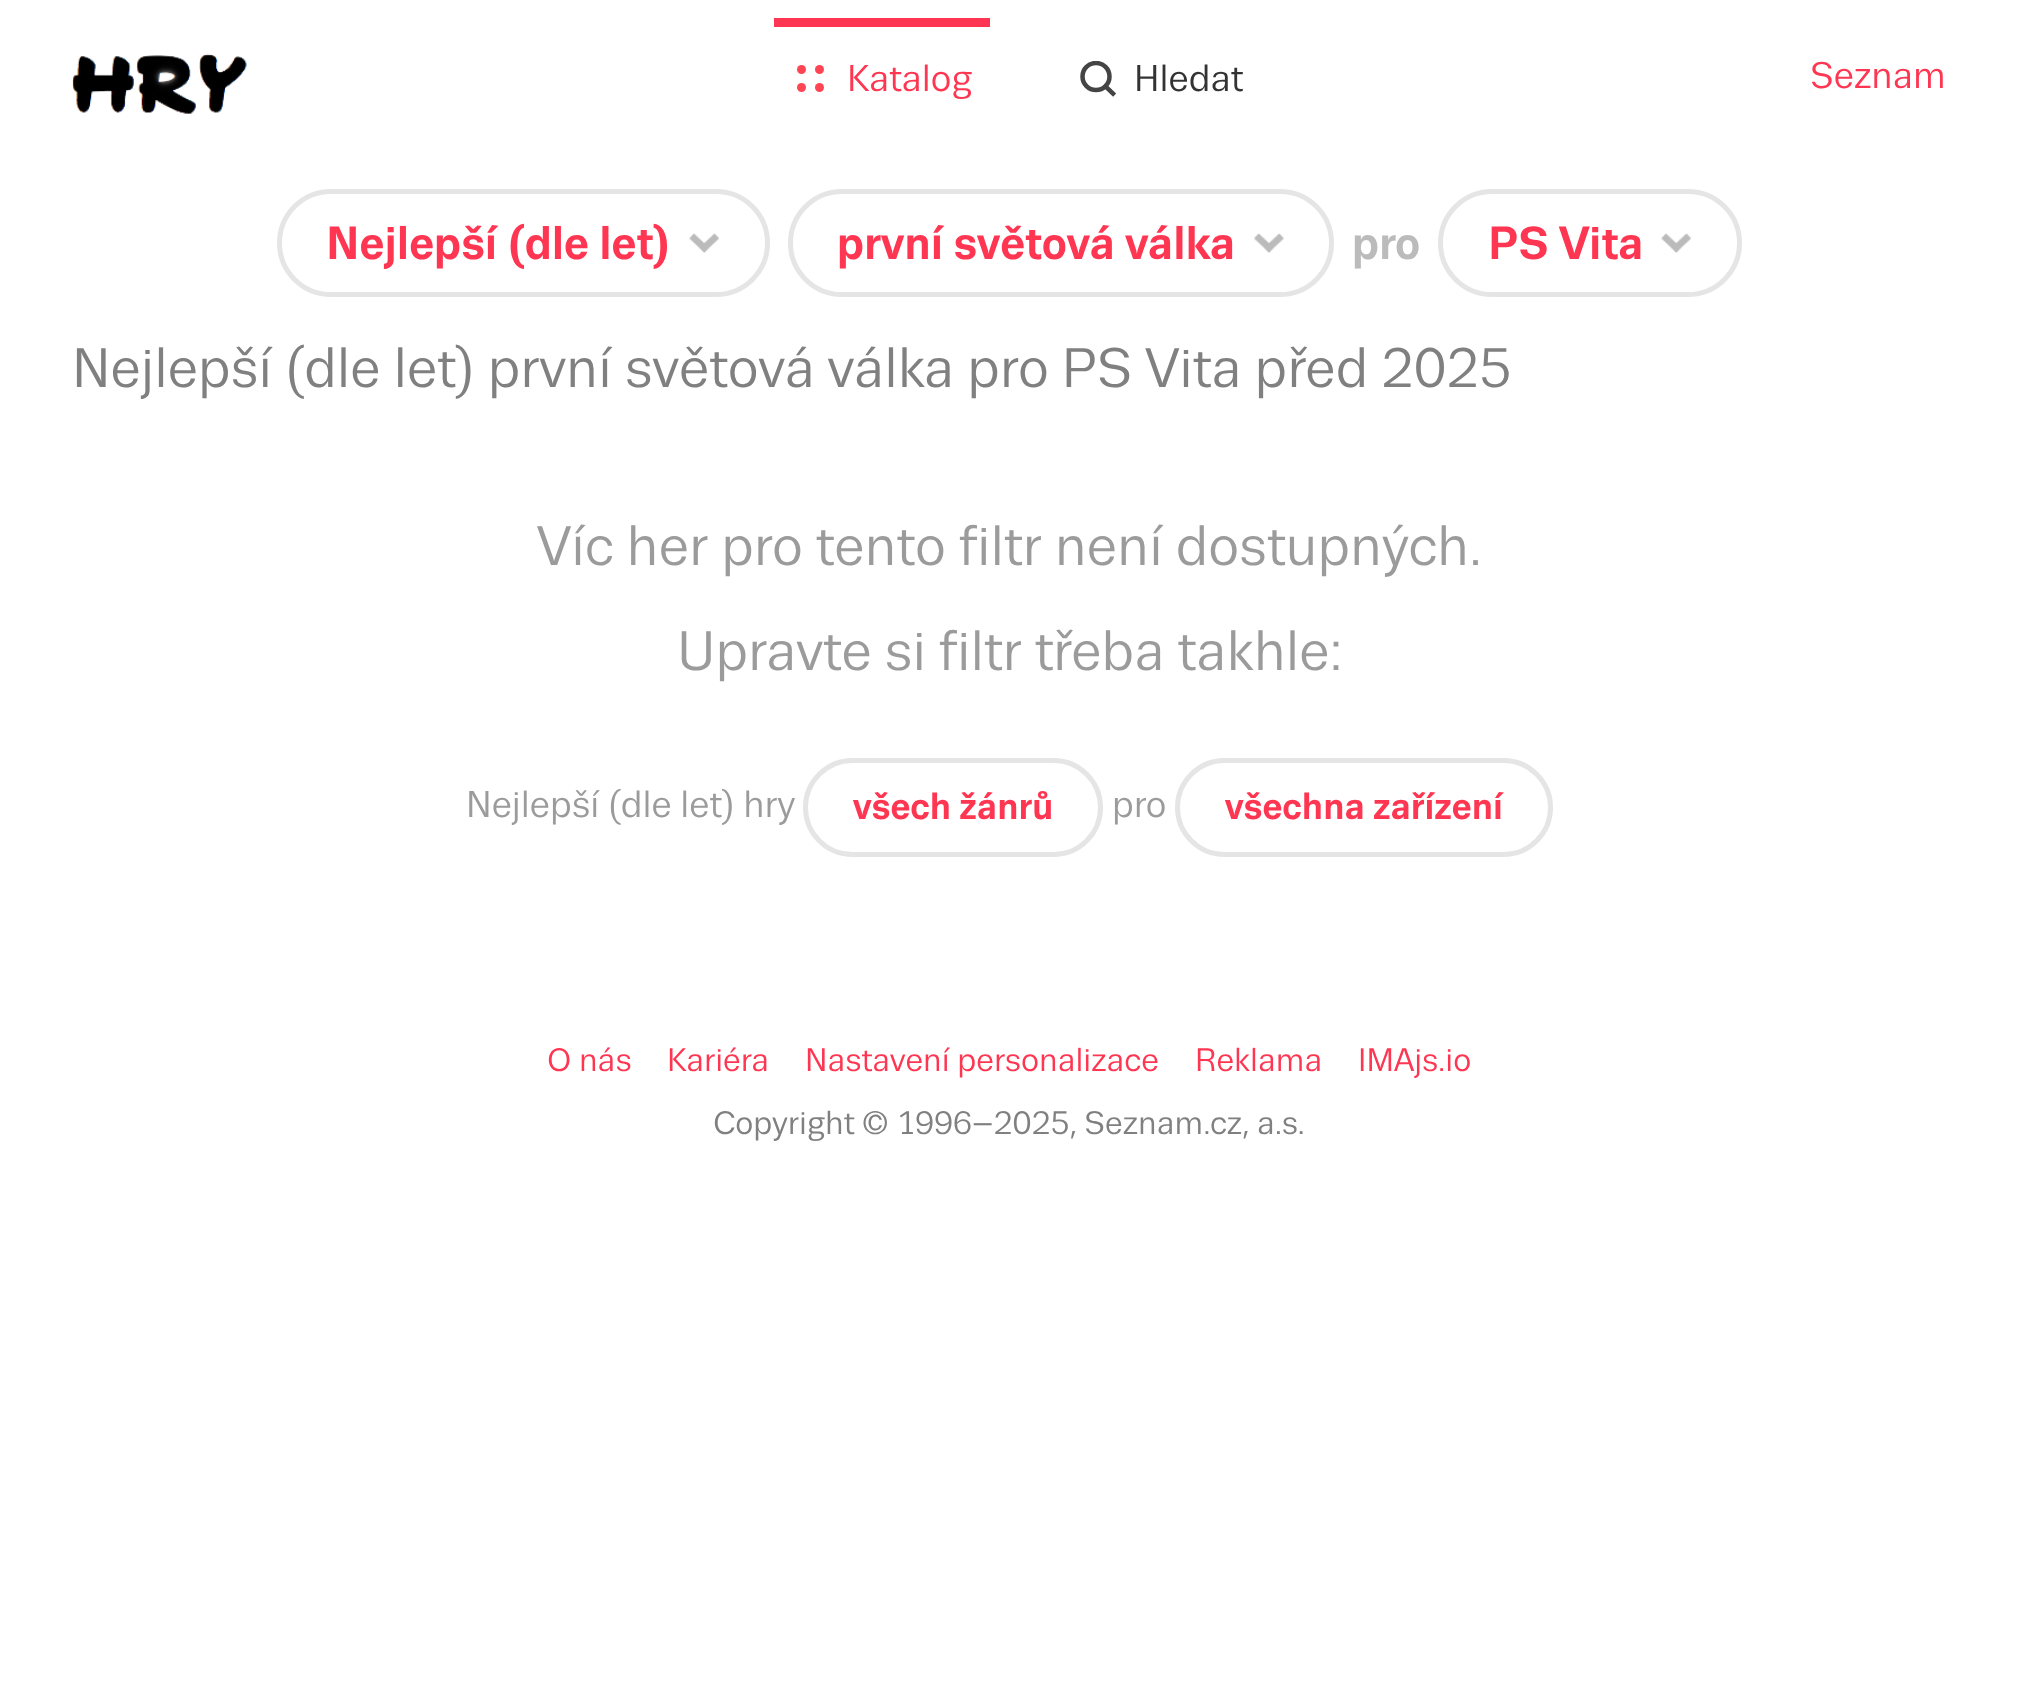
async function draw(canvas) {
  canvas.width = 2018;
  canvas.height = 1703;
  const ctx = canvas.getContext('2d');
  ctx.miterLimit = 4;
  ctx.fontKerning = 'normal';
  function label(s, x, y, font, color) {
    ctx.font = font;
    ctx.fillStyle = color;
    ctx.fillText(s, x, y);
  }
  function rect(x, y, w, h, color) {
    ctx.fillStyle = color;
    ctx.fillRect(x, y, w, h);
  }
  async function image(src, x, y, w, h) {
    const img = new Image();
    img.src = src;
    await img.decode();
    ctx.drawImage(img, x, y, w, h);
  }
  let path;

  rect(0, 0, 2018, 1703, '#fff');
  await image('assets/img1.png', 72, 54, 175, 60);
  rect(774, 18, 216, 9, '#fe3652');
  ctx.fillStyle = '#ff4553';
  ctx.beginPath();
  ctx.arc(801.5, 69.5, 4.5, 0, 2 * Math.PI);
  ctx.fill();
  ctx.beginPath();
  ctx.arc(819.5, 69.5, 4.5, 0, 2 * Math.PI);
  ctx.fill();
  label('Katalog', 847, 91, '36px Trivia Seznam', '#fe3652');
  ctx.fillStyle = '#ff4553';
  ctx.beginPath();
  ctx.arc(801.5, 87.5, 4.5, 0, 2 * Math.PI);
  ctx.fill();
  ctx.beginPath();
  ctx.arc(819.5, 87.5, 4.5, 0, 2 * Math.PI);
  ctx.fill();
  label('Hledat', 1134, 91, '36px Trivia Seznam', '#333');
  ctx.save();
  ctx.beginPath();
  ctx.rect(1080, 61, 36, 36);
  ctx.clip();
  ctx.beginPath();
  ctx.arc(1096, 76.5, 13.5, 0, 2 * Math.PI);
  ctx.strokeStyle = '#444';
  ctx.lineWidth = 4.5;
  ctx.stroke();
  ctx.restore();
  path = new Path2D('M1105.5 86.5L1113 93.5');
  ctx.strokeStyle = '#444';
  ctx.lineWidth = 4.5;
  ctx.lineCap = 'square';
  ctx.stroke(path);
  label('Seznam', 1810, 88, '36px Trivia Seznam', '#fe3652');
  ctx.beginPath();
  ctx.roundRect(279.5, 191.5, 488, 103, 51.5);
  ctx.strokeStyle = '#e5e5e5';
  ctx.lineWidth = 5;
  ctx.stroke();
  label('Nejlepší (dle let)', 326, 259, 'bold 45px Trivia Seznam', '#fe3652');
  await image('assets/img2.png', 689, 233, 30, 20);
  ctx.beginPath();
  ctx.roundRect(790.5, 191.5, 541, 103, 51.5);
  ctx.stroke();
  label('první světová válka', 837, 259, 'bold 45px Trivia Seznam', '#fe3652');
  await image('assets/img3.png', 1254, 233, 30, 20);
  label('pro', 1352, 259, 'bold 45px Trivia Seznam', '#bbb');
  ctx.beginPath();
  ctx.roundRect(1440.5, 191.5, 299, 103, 51.5);
  ctx.stroke();
  label('PS Vita', 1488, 259, 'bold 45px Trivia Seznam', '#fe3652');
  await image('assets/img2.png', 1661, 233, 30, 20);
  label('Nejlepší (dle let) první světová válka pro PS Vita před 2025', 72, 387, '54px Trivia Seznam', '#808080');
  label('Víc her pro tento filtr není dostupných.', 537, 565, '54px Trivia Seznam', '#9b9b9b');
  label('Upravte si filtr třeba takhle:', 677, 670, '54px Trivia Seznam', '#9b9b9b');
  label('Nejlepší (dle let) hry', 466, 817, '36px Trivia Seznam', '#9b9b9b');
  ctx.beginPath();
  ctx.roundRect(805.5, 760.5, 295, 94, 47);
  ctx.stroke();
  label('všech žánrů', 853, 819, 'bold 36px Trivia Seznam', '#fe3652');
  label('pro', 1112, 817, '36px Trivia Seznam', '#9b9b9b');
  ctx.beginPath();
  ctx.roundRect(1177.5, 760.5, 373, 94, 47);
  ctx.stroke();
  label('všechna zařízení', 1225, 819, 'bold 36px Trivia Seznam', '#fe3652');
  label('O nás', 547, 1071, '31.5px Trivia Seznam', '#fe3652');
  label('Kariéra', 667, 1071, '31.5px Trivia Seznam', '#fe3652');
  label('Nastavení personalizace', 805, 1071, '31.5px Trivia Seznam', '#fe3652');
  label('Reklama', 1195, 1071, '31.5px Trivia Seznam', '#fe3652');
  label('IMAjs.io', 1358, 1071, '31.5px Trivia Seznam', '#fe3652');
  label('Copyright © 1996–2025, Seznam.cz, a.s.', 713, 1134, '31.5px Trivia Seznam', '#808080');
}

draw(document.querySelector('canvas'));
